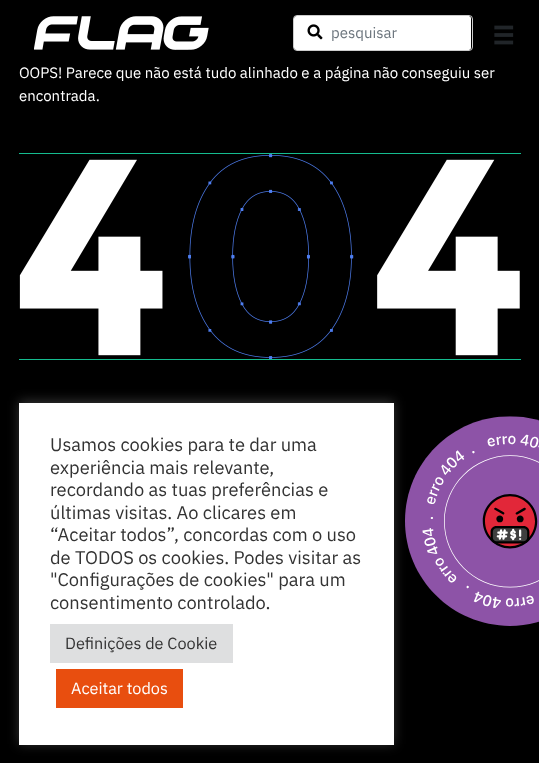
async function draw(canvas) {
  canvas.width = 539;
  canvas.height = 763;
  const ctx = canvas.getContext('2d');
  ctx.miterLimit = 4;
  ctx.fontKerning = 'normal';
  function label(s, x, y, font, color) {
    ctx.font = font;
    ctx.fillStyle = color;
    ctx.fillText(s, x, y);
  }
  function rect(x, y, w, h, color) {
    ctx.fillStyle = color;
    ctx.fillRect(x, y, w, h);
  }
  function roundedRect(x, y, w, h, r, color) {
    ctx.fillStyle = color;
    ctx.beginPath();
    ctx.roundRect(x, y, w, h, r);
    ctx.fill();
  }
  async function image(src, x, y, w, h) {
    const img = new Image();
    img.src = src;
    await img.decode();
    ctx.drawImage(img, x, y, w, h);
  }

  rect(0, 0, 539, 763, '#000');
  ctx.save();
  ctx.beginPath();
  ctx.rect(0, 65, 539, 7);
  ctx.clip();
  ctx.fillStyle = '#00000040';
  ctx.filter = 'blur(5px)';
  ctx.beginPath();
  ctx.rect(0, 0, 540, 65);
  ctx.fill();
  ctx.filter = 'none';
  ctx.restore();
  await image('assets/img1.png', 34, 16, 175, 34);
  await image('assets/img2.png', 494, 25, 20, 20);
  roundedRect(294, 16, 177, 34, 2.5, '#fff');
  ctx.beginPath();
  ctx.roundRect(293.5, 15.5, 179, 35, 3.5);
  ctx.strokeStyle = '#ccc';
  ctx.stroke();
  await image('assets/img3.png', 307, 24, 16, 16);
  label('pesquisar', 331, 38, '15px IBM Plex Sans', '#6c757d');
  label('OOPS! Parece que não está tudo alinhado e a página não conseguiu ser', 19, 78, '15px IBM Plex Sans', '#fff');
  label('encontrada.', 19, 101, '15px IBM Plex Sans', '#fff');
  rect(19, 153, 502, 1, '#15bc8f');
  rect(19, 359, 502, 1, '#15bc8f');
  await image('assets/img4.png', 19, 154, 501, 205);
  await image('assets/img5.png', 405, 416, 134, 210);
  ctx.fillStyle = '#acabab4d';
  ctx.filter = 'blur(6px)';
  ctx.beginPath();
  ctx.rect(19, 401, 375, 343);
  ctx.fill();
  ctx.filter = 'none';
  rect(19, 403, 375, 342, '#fff');
  label('Usamos cookies para te dar uma', 50, 451, '18.3px IBM Plex Sans', '#333');
  label('experiência mais relevante,', 50, 474, '18.3px IBM Plex Sans', '#333');
  label('recordando as tuas preferências e', 50, 496, '18.3px IBM Plex Sans', '#333');
  label('últimas visitas. Ao clicares em', 50, 519, '18.3px IBM Plex Sans', '#333');
  label('“Aceitar todos”, concordas com o uso', 50, 541, '18.3px IBM Plex Sans', '#333');
  label('de TODOS os cookies. Podes visitar as', 50, 564, '18.3px IBM Plex Sans', '#333');
  label('"Configurações de cookies" para um', 50, 586, '18.3px IBM Plex Sans', '#333');
  label('consentimento controlado.', 50, 609, '18.3px IBM Plex Sans', '#333');
  rect(50, 624, 183, 39, '#dedfe0');
  label('Definições de Cookie', 65, 649, '16.25px IBM Plex Sans', '#333');
  rect(56, 669, 127, 39, '#e84e0f');
  label('Aceitar todos', 71, 694, '16.25px IBM Plex Sans', '#fff');
}

draw(document.querySelector('canvas'));
